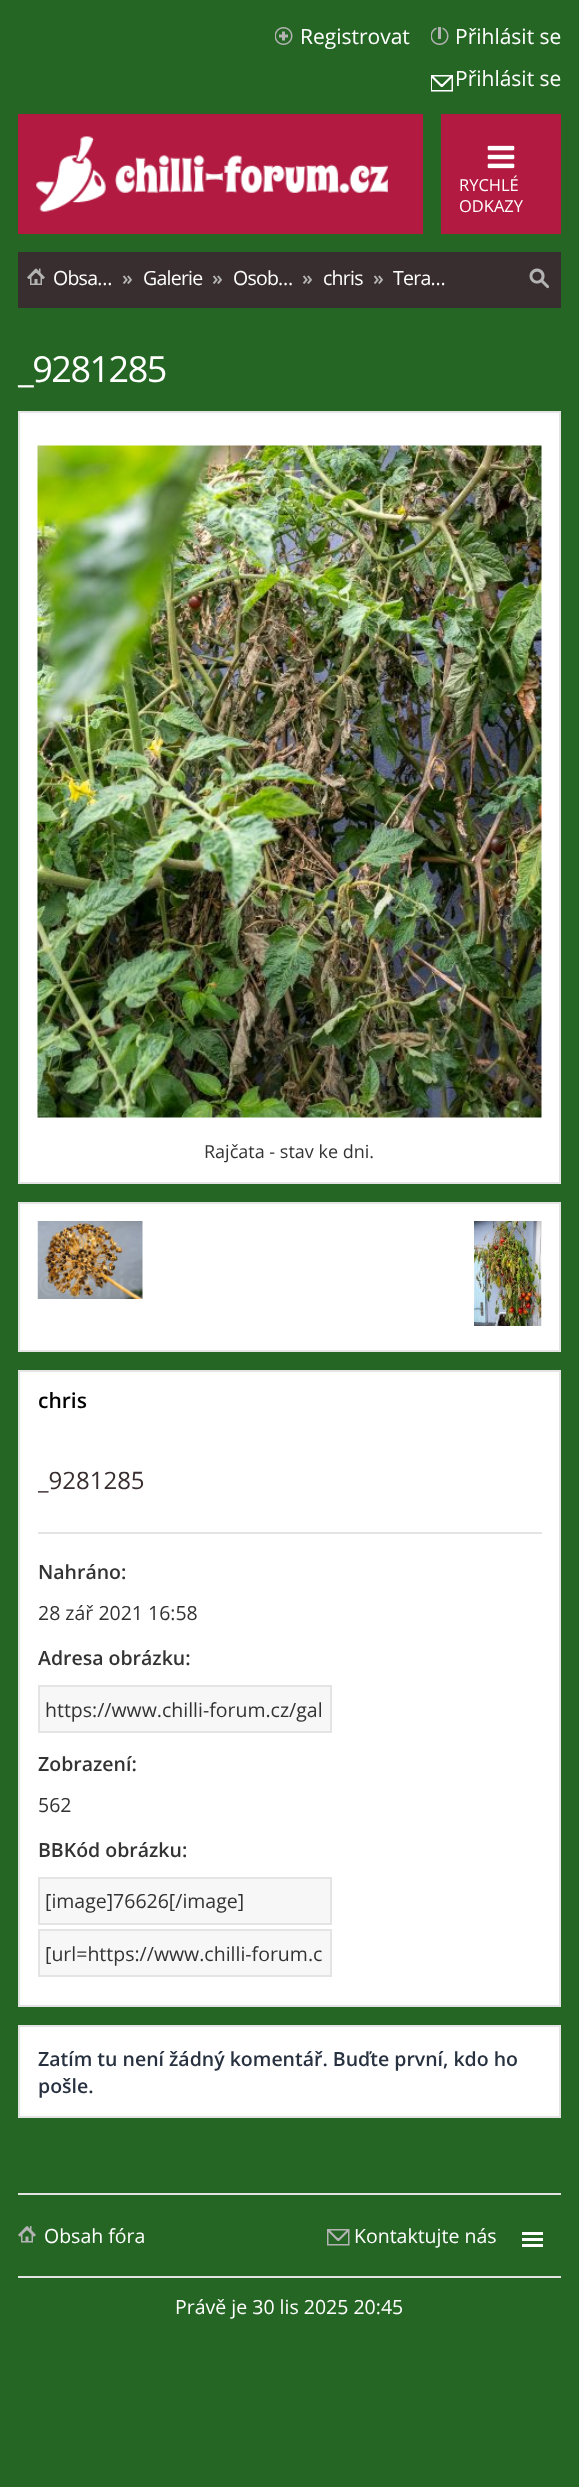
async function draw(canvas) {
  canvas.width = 579;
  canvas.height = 2487;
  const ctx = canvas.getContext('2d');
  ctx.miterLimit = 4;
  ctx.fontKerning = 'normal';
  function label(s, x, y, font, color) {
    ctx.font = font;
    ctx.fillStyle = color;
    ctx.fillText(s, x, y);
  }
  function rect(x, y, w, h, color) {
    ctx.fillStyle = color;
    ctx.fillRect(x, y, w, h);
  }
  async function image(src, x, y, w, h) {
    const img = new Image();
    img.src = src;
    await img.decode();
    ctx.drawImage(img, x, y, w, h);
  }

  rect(0, 0, 579, 2487, '#256625');
  await image('assets/img1.png', 275, 27, 18, 18);
  label('Registrovat', 300, 44, '21px Open Sans', '#fff');
  await image('assets/img2.png', 431, 27, 22, 65);
  label('Přihlásit se', 455, 44, '21px Open Sans', '#fff');
  label('Přihlásit se', 455, 86, '21px Open Sans', '#fff');
  rect(18, 114, 543, 120, '#b21a41');
  await image('assets/img3.png', 36, 136, 353, 76);
  rect(423, 114, 18, 120, '#256625');
  await image('assets/img4.png', 487, 145, 28, 24);
  label('RYCHLÉ', 459, 191, '16.5px Open Sans', '#fff');
  label('ODKAZY', 459, 212, '16.5px Open Sans', '#fff');
  rect(18, 252, 543, 56, '#392e2f');
  await image('assets/img5.png', 27, 268, 18, 17);
  ctx.letterSpacing = '-0.75px';
  label('Obsa…', 53, 285, '19.5px Open Sans', '#fff');
  ctx.letterSpacing = '0px';
  label('»', 122, 285, '600 19.5px Open Sans', '#b4b4b4');
  ctx.letterSpacing = '-0.75px';
  label('Galerie', 143, 285, '19.5px Open Sans', '#fff');
  ctx.letterSpacing = '0px';
  label('»', 212, 285, '600 19.5px Open Sans', '#b4b4b4');
  ctx.letterSpacing = '-0.75px';
  label('Osob…', 233, 285, '19.5px Open Sans', '#fff');
  ctx.letterSpacing = '0px';
  label('»', 302, 285, '600 19.5px Open Sans', '#b4b4b4');
  ctx.letterSpacing = '-0.75px';
  label('chris', 323, 285, '19.5px Open Sans', '#fff');
  ctx.letterSpacing = '0px';
  label('»', 373, 285, '600 19.5px Open Sans', '#b4b4b4');
  ctx.letterSpacing = '-0.75px';
  label('Tera…', 393, 285, '19.5px Open Sans', '#fff');
  await image('assets/img6.png', 529, 268, 20, 21);
  ctx.letterSpacing = '-1.5px';
  label('_9281285', 18, 382, '36px Open Sans', '#fff');
  ctx.beginPath();
  ctx.rect(19, 412, 541, 771);
  ctx.fill();
  ctx.strokeStyle = '#e4e4e4';
  ctx.lineWidth = 2;
  ctx.stroke();
  await image('assets/img7.png', 37, 445, 505, 673);
  ctx.letterSpacing = '0px';
  label('Rajčata - stav ke dni.', 204, 1158, '18px Open Sans', '#333');
  ctx.fillStyle = '#fff';
  ctx.beginPath();
  ctx.rect(19, 1203, 541, 148);
  ctx.fill();
  ctx.stroke();
  await image('assets/img8.png', 37, 1221, 106, 78);
  await image('assets/img9.png', 474, 1221, 68, 105);
  ctx.beginPath();
  ctx.rect(19, 1371, 541, 635);
  ctx.fill();
  ctx.stroke();
  label('chris', 38, 1408, '600 21px Open Sans', '#000');
  label('_9281285', 38, 1489, '24px Open Sans', '#392e2f');
  rect(38, 1532, 504, 2, '#e4e4e4');
  label('Nahráno:', 38, 1579, '600 19.5px Open Sans', '#333');
  label('28 zář 2021 16:58', 38, 1620, '19.5px Open Sans', '#333');
  label('Adresa obrázku:', 38, 1665, '600 19.5px Open Sans', '#333');
  ctx.fillStyle = '#f7f7f7';
  ctx.beginPath();
  ctx.rect(39, 1686, 292, 46);
  ctx.fill();
  ctx.stroke();
  label('https://www.chilli-forum.cz/gal', 45, 1717, '19.5px Open Sans', '#333');
  label('Zobrazení:', 38, 1771, '600 19.5px Open Sans', '#333');
  label('562', 38, 1812, '19.5px Open Sans', '#333');
  label('BBKód obrázku:', 38, 1857, '600 19.5px Open Sans', '#333');
  ctx.fillStyle = '#f7f7f7';
  ctx.beginPath();
  ctx.rect(39, 1878, 292, 46);
  ctx.fill();
  ctx.stroke();
  label('[image]76626[/image]', 45, 1908, '19.5px Open Sans', '#333');
  ctx.fillStyle = '#f7f7f7';
  ctx.beginPath();
  ctx.rect(39, 1930, 292, 46);
  ctx.fill();
  ctx.stroke();
  label('[url=https://www.chilli-forum.c', 45, 1961, '19.5px Open Sans', '#333');
  ctx.fillStyle = '#fff';
  ctx.beginPath();
  ctx.rect(19, 2026, 541, 91);
  ctx.fill();
  ctx.stroke();
  label('Zatím tu není žádný komentář. Buďte první, kdo ho', 38, 2066, '600 19.5px Open Sans', '#28313f');
  label('pošle.', 38, 2093, '600 19.5px Open Sans', '#28313f');
  rect(18, 2193, 543, 2, '#e4e4e4');
  rect(18, 2276, 543, 2, '#e4e4e4');
  await image('assets/img10.png', 18, 2226, 18, 17);
  label('Obsah fóra', 44, 2243, '19.5px Open Sans', '#fff');
  await image('assets/img11.png', 327, 2229, 23, 17);
  label('Kontaktujte nás', 354, 2243, '19.5px Open Sans', '#fff');
  rect(522, 2232, 21, 3, '#fff');
  rect(522, 2238, 21, 3, '#fff');
  rect(522, 2244, 21, 3, '#fff');
  label('Právě je 30 lis 2025 20:45', 175, 2314, '19.5px Open Sans', '#fff');
}

draw(document.querySelector('canvas'));
